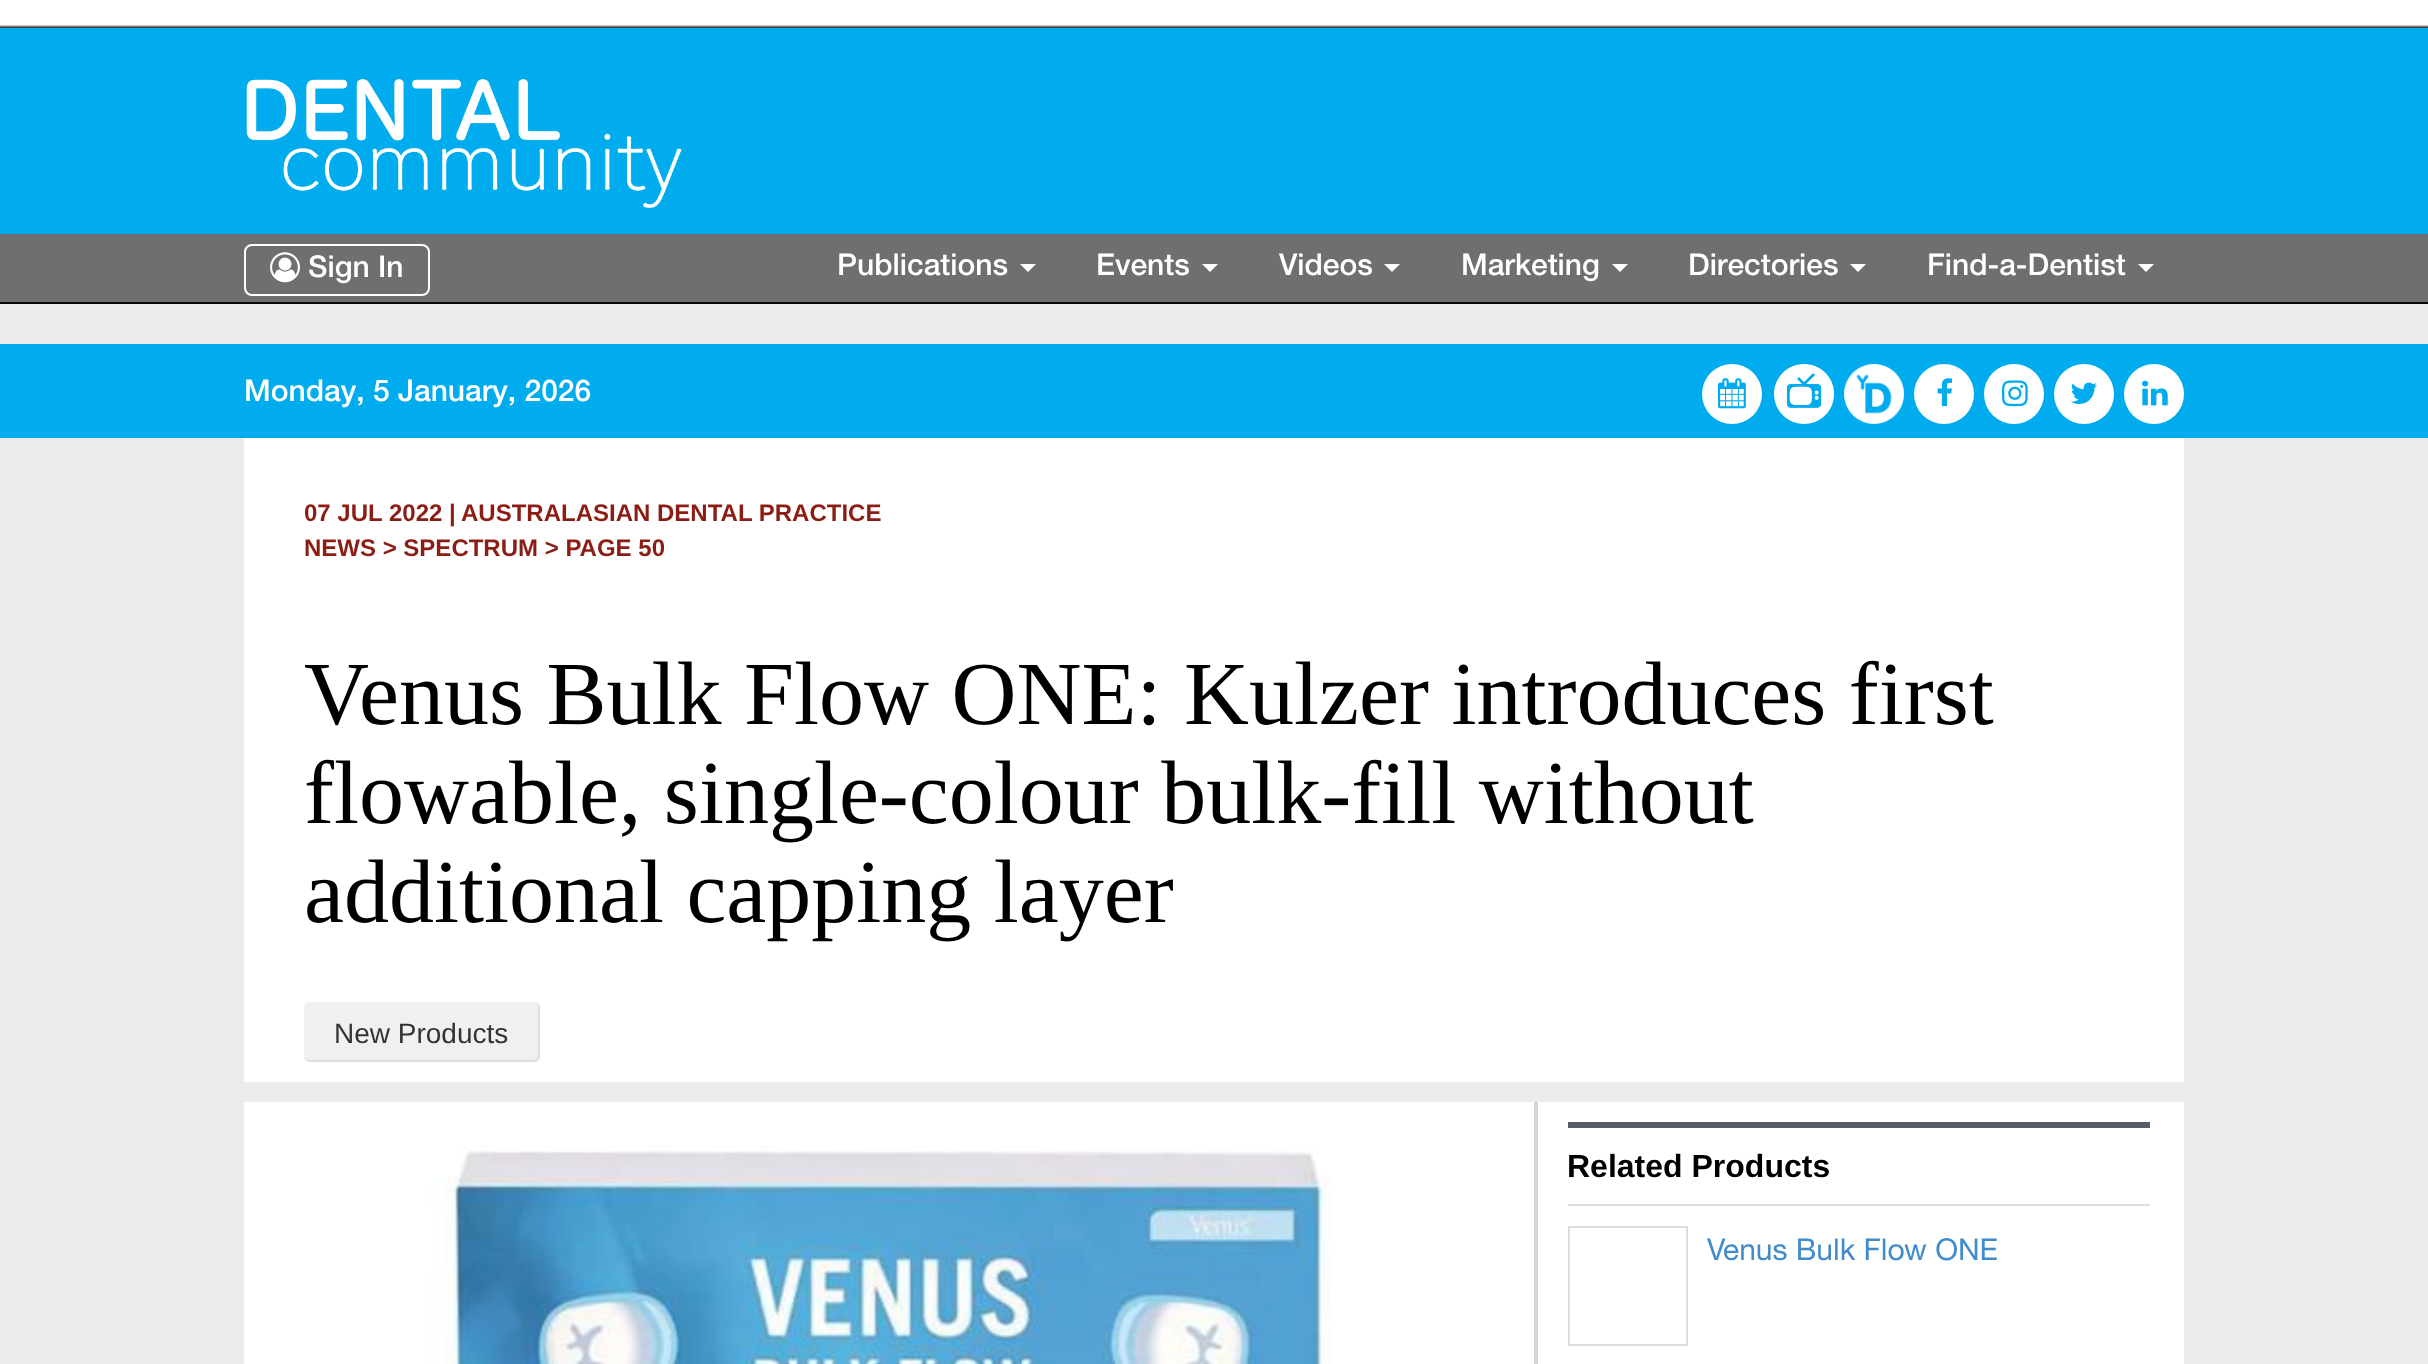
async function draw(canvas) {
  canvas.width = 2428;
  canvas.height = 1364;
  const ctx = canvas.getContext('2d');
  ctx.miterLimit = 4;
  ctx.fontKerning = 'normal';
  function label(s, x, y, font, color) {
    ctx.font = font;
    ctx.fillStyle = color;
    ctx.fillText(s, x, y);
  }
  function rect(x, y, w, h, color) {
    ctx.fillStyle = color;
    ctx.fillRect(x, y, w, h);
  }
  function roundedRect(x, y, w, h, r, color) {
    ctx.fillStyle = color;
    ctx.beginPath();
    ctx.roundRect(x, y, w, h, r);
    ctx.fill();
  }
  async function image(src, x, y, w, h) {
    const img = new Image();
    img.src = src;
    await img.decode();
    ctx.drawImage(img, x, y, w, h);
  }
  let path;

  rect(0, 0, 2428, 1364, '#ebebeb');
  rect(0, 28, 2428, 206, '#00aced');
  await image('assets/img1.png', 0, 0, 2428, 28);
  await image('assets/img2.png', 246, 79, 436, 129);
  rect(0, 234, 2428, 68, '#6d6f71');
  rect(0, 302, 2428, 2, '#080808');
  ctx.beginPath();
  ctx.roundRect(245, 245, 184, 50, 7);
  ctx.strokeStyle = '#fff';
  ctx.lineWidth = 2;
  ctx.stroke();
  await image('assets/img3.png', 270, 252, 30, 31);
  label('Sign In', 308, 277, '500 30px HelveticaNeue', '#fff');
  label('Publications', 837, 275, '500 30px HelveticaNeue', '#fff');
  path = new Path2D('M1020 264H1036L1028 272Z');
  ctx.fill(path);
  label('Events', 1096, 275, '500 30px HelveticaNeue', '#fff');
  path = new Path2D('M1202 264H1218L1210 272Z');
  ctx.fill(path);
  label('Videos', 1279, 275, '500 30px HelveticaNeue', '#fff');
  path = new Path2D('M1384 264H1400L1392 272Z');
  ctx.fill(path);
  label('Marketing', 1461, 275, '500 30px HelveticaNeue', '#fff');
  path = new Path2D('M1612 264H1628L1620 272Z');
  ctx.fill(path);
  label('Directories', 1688, 275, '500 30px HelveticaNeue', '#fff');
  path = new Path2D('M1850 264H1866L1858 272Z');
  ctx.fill(path);
  label('Find-a-Dentist', 1927, 275, '500 30px HelveticaNeue', '#fff');
  path = new Path2D('M2138 264H2154L2146 272Z');
  ctx.fill(path);
  rect(0, 344, 2428, 94, '#00aced');
  label('Monday, 5 January, 2026', 244, 401, '500 30px HelveticaNeue', '#fff');
  ctx.beginPath();
  ctx.arc(1732, 394, 30, 0, 2 * Math.PI);
  ctx.fill();
  await image('assets/img4.png', 1718, 378, 28, 31);
  await image('assets/img5.png', 1774, 364, 60, 60);
  await image('assets/img6.png', 1844, 364, 60, 60);
  ctx.beginPath();
  ctx.arc(1944, 394, 30, 0, 2 * Math.PI);
  ctx.fill();
  await image('assets/img7.png', 1937, 378, 16, 29);
  ctx.beginPath();
  ctx.arc(2014, 394, 30, 0, 2 * Math.PI);
  ctx.fill();
  await image('assets/img8.png', 2002, 380, 26, 27);
  ctx.beginPath();
  ctx.arc(2084, 394, 30, 0, 2 * Math.PI);
  ctx.fill();
  await image('assets/img9.png', 2071, 382, 26, 22);
  ctx.beginPath();
  ctx.arc(2154, 394, 30, 0, 2 * Math.PI);
  ctx.fill();
  await image('assets/img10.png', 2142, 380, 26, 26);
  rect(244, 438, 1940, 644, '#fff');
  label('07 JUL 2022 |', 304, 521, 'bold 24px Liberation Sans', '#8c1d14');
  label('AUSTRALASIAN DENTAL PRACTICE', 461, 521, 'bold 24px Liberation Sans', '#8c1d14');
  label('NEWS > SPECTRUM > PAGE 50', 304, 556, 'bold 24px Liberation Sans', '#8c1d14');
  label('Venus Bulk Flow ONE: Kulzer introduces first', 304, 724, '90px Liberation Serif', '#000');
  label('flowable, single-colour bulk-fill without', 304, 823, '90px Liberation Serif', '#000');
  label('additional capping layer', 304, 922, '90px Liberation Serif', '#000');
  roundedRect(304, 1002, 236, 60, 6, '#f0f0f0');
  ctx.fillStyle = '#ddd';
  path = new Path2D('M310 1002H534C537 1002 540 1005 540 1008V1056C540 1059 537 1062 534 1062H310C307 1062 304 1059 304 1056V1008C304 1005 307 1002 310 1002ZM310 1002H534C536 1002 538 1005 538 1008V1056C538 1058 536 1060 534 1060H310C307 1060 304 1058 304 1056V1008C304 1005 307 1002 310 1002Z');
  ctx.fill(path, 'evenodd');
  label('New Products', 334, 1043, '28px Liberation Sans', '#333');
  rect(244, 1102, 1940, 262, '#fff');
  rect(1534, 1102, 4, 262, '#d1d3d5');
  await image('assets/img11.png', 429, 1146, 903, 218);
  rect(1568, 1122, 582, 6, '#575e68');
  rect(1568, 1204, 582, 2, '#ddd');
  label('Related Products', 1567, 1177, 'bold 32px Liberation Sans', '#000');
  ctx.strokeStyle = '#ddd';
  ctx.strokeRect(1569, 1227, 118, 118);
  label('Venus Bulk Flow ONE', 1707, 1260, '30px "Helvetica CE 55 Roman"', '#428bca');
}

draw(document.querySelector('canvas'));
